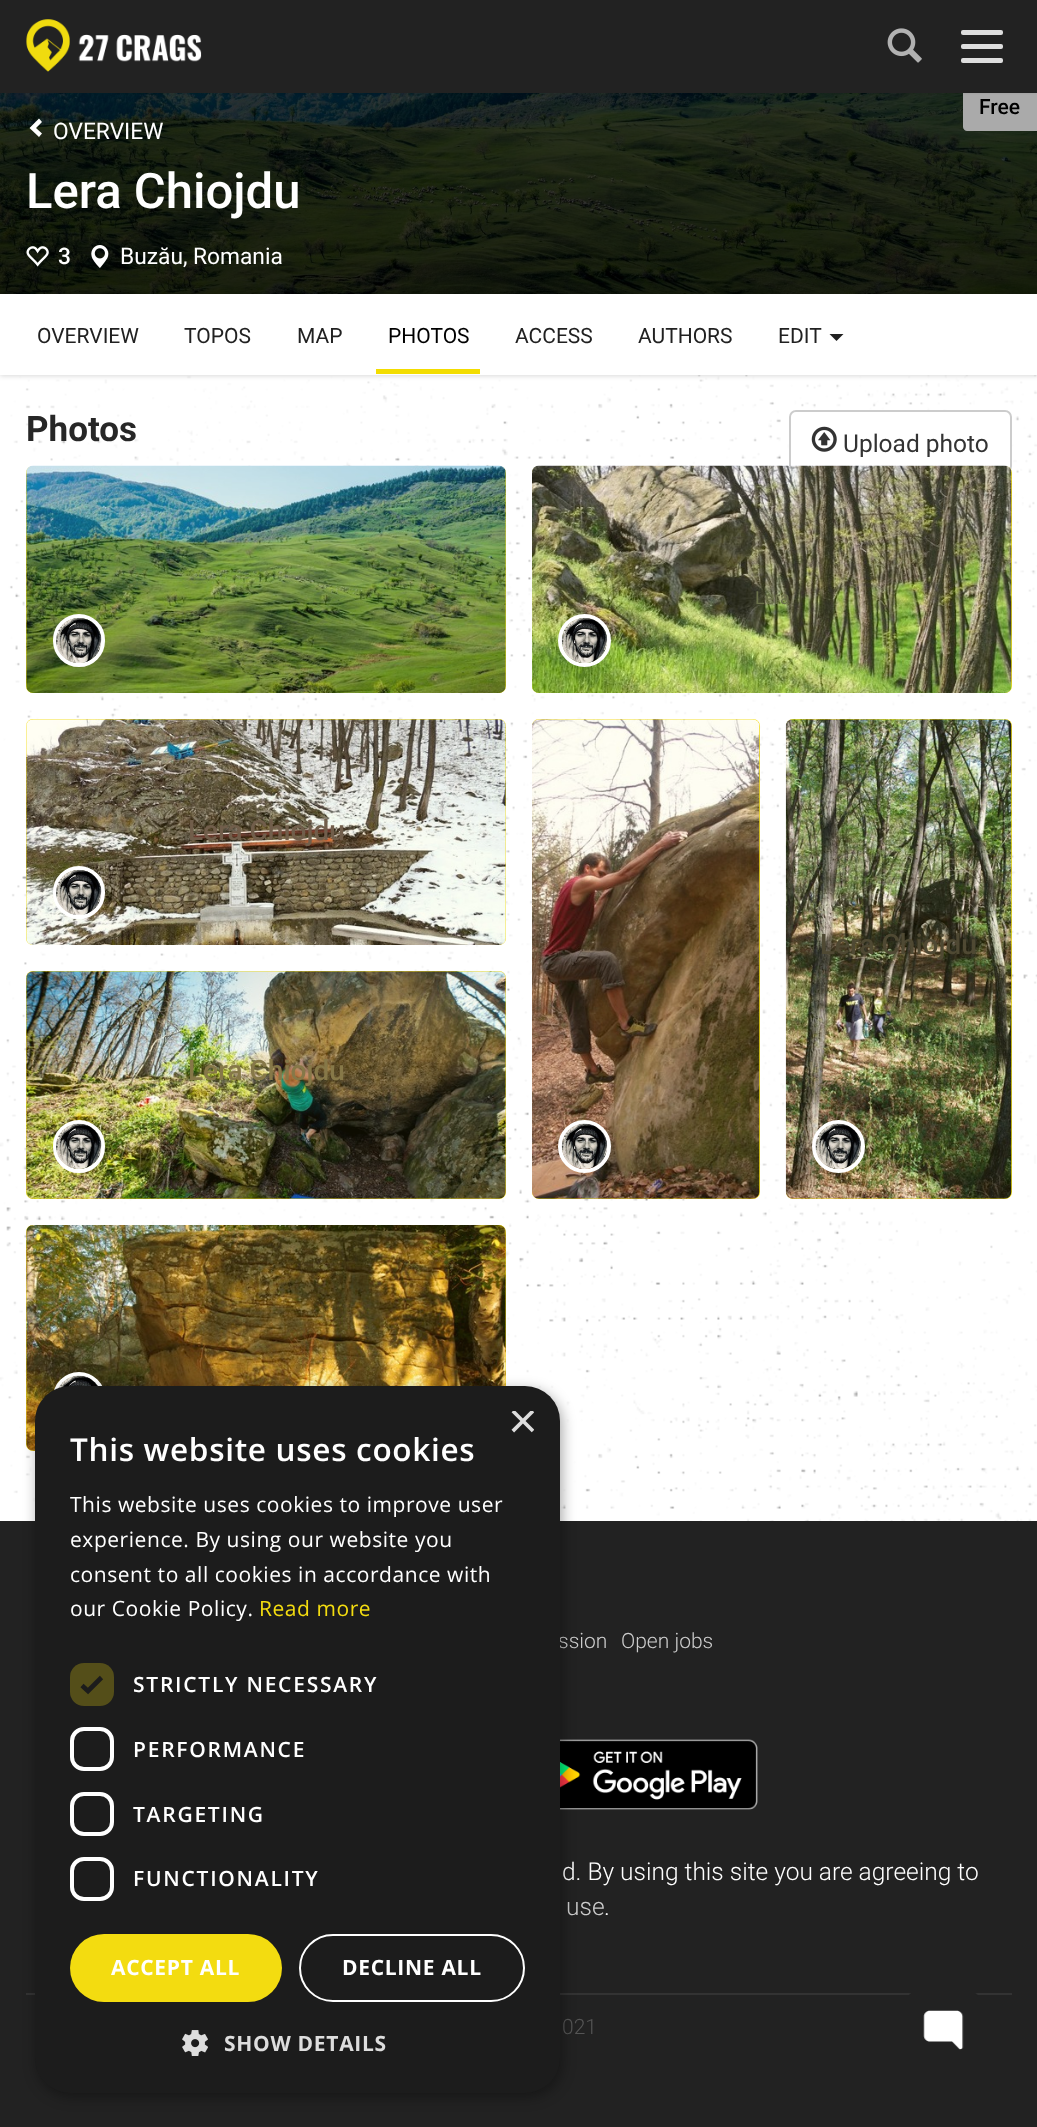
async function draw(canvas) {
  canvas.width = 1037;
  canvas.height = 2127;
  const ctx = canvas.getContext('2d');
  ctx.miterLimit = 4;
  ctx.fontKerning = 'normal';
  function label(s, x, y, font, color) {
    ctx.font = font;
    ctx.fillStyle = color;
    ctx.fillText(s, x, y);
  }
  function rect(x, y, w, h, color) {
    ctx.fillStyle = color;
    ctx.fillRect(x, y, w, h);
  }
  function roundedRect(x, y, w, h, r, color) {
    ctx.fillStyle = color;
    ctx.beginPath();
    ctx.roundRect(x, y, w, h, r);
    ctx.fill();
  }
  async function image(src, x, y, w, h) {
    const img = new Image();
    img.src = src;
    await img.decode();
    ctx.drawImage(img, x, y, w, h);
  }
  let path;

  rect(0, 0, 1037, 2127, '#fff');
  await image('assets/img1.png', 0, 375, 1037, 1146);
  await image('assets/img4.png', 0, 93, 1037, 201);
  ctx.fillStyle = '#aaa';
  path = new Path2D('M967 84H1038V131H967C965 131 963 129 963 127V88C963 86 965 84 967 84Z');
  ctx.fill(path);
  ctx.fillStyle = '#010101';
  ctx.filter = 'blur(2.5px)';
  ctx.beginPath();
  ctx.rect(0, 2, 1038, 87);
  ctx.fill();
  ctx.filter = 'none';
  rect(0, 0, 1037, 93, '#222');
  await image('assets/img2.png', 26, 19, 176, 53);
  await image('assets/img3.png', 887, 28, 35, 35);
  roundedRect(961, 30, 42, 5, 2, '#dedede');
  roundedRect(961, 44, 42, 5, 2, '#dedede');
  roundedRect(961, 58, 42, 5, 2, '#dedede');
  label('Free', 979, 114, '500 21px Roboto', '#000');
  ctx.fillStyle = '#fff';
  path = new Path2D('M39 137L29.5 128L39 118.5L42 122L36 128L42 133.5Z');
  ctx.fill(path);
  label('OVERVIEW', 53, 139, '22.75px Roboto', '#fff');
  label('Lera Chiojdu', 26, 208, '500 49px Roboto', '#fff');
  await image('assets/img5.png', 26, 246, 23, 21);
  label('3', 58, 264, '500 22.75px Roboto', '#fff');
  await image('assets/img6.png', 91, 245, 18, 23);
  label('Buzău, Romania', 120, 264, '22.75px Roboto', '#fff');
  ctx.fillStyle = '#00000026';
  ctx.filter = 'blur(2.5px)';
  ctx.beginPath();
  ctx.rect(0, 296, 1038, 80);
  ctx.fill();
  ctx.filter = 'none';
  rect(0, 294, 1037, 81, '#fff');
  label('OVERVIEW', 37, 343, '21px Roboto', '#212121');
  label('TOPOS', 184, 343, '21px Roboto', '#212121');
  label('MAP', 297, 343, '21px Roboto', '#212121');
  label('PHOTOS', 388, 343, '21px Roboto', '#000');
  label('ACCESS', 515, 343, '21px Roboto', '#212121');
  label('AUTHORS', 638, 343, '21px Roboto', '#212121');
  label('EDIT', 778, 343, '21px Roboto', '#212121');
  path = new Path2D('M829.5 334H843.5L836.5 341Z');
  ctx.fill(path);
  rect(376, 369, 104, 5, '#f3dd00');
  label('Photos', 26, 441, 'bold 35px Roboto', '#272727');
  ctx.fillStyle = '#fff';
  ctx.beginPath();
  ctx.roundRect(790, 411, 221, 61, 6);
  ctx.fill();
  ctx.strokeStyle = '#ccc';
  ctx.lineWidth = 2;
  ctx.stroke();
  await image('assets/img7.png', 811, 426, 26, 26);
  label('Upload photo', 843, 452, '24.5px Roboto', '#333');
  roundedRect(26, 466, 480, 227, 7, '#f3dc10f2');
  await image('assets/img8.png', 26, 465, 480, 228);
  ctx.beginPath();
  ctx.roundRect(55, 616, 48, 49, 24);
  ctx.strokeStyle = '#fff';
  ctx.lineWidth = 4;
  ctx.stroke();
  await image('assets/img9.png', 56, 617, 46, 46);
  roundedRect(532, 466, 480, 227, 7, '#f3dc10f2');
  await image('assets/img10.png', 532, 465, 480, 228);
  label('Lera', 755, 604, '18px Roboto', '#6b714b');
  ctx.beginPath();
  ctx.arc(584.5, 640.5, 24.5, 0, 2 * Math.PI);
  ctx.stroke();
  await image('assets/img11.png', 561, 617, 47, 46);
  roundedRect(26, 719, 480, 226, 7, '#f3dc10f2');
  await image('assets/img12.png', 26, 719, 480, 226);
  label('Lera Chiojdu', 188, 840, '500 28px Roboto', '#715e4b');
  ctx.beginPath();
  ctx.roundRect(55, 868, 48, 49, 24);
  ctx.stroke();
  await image('assets/img13.png', 56, 869, 46, 46);
  roundedRect(532, 719, 228, 480, 7, '#f3dc10f2');
  await image('assets/img14.png', 532, 719, 228, 480);
  ctx.beginPath();
  ctx.arc(584.5, 1146.5, 24.5, 0, 2 * Math.PI);
  ctx.stroke();
  await image('assets/img15.png', 561, 1123, 47, 46);
  roundedRect(786, 719, 226, 480, 7, '#f3dc10f2');
  await image('assets/img16.png', 785, 719, 227, 480);
  label('Lera Chiojdu', 820, 954, '500 28px Roboto', '#4f4933');
  ctx.beginPath();
  ctx.arc(838.5, 1146.5, 24.5, 0, 2 * Math.PI);
  ctx.stroke();
  await image('assets/img17.png', 815, 1123, 46, 46);
  roundedRect(26, 971, 480, 228, 7, '#f3dc10f2');
  await image('assets/img18.png', 26, 971, 480, 228);
  label('Lera Chiojdu', 188, 1080, '500 28px Roboto', '#867848');
  ctx.beginPath();
  ctx.roundRect(55, 1122, 48, 49, 24);
  ctx.stroke();
  await image('assets/img19.png', 56, 1123, 46, 46);
  roundedRect(26, 1225, 480, 226, 7, '#f3dc10f2');
  await image('assets/img20.png', 26, 1225, 480, 226);
  ctx.beginPath();
  ctx.roundRect(55, 1374, 48, 49, 24);
  ctx.stroke();
  await image('assets/img21.png', 58, 1375, 40, 14);
  rect(0, 1521, 1037, 606, '#222');
  label('ssion', 558, 1648, '300 21px Roboto', '#ccc');
  label('Open jobs', 621, 1648, '300 21px Roboto', '#ccc');
  await image('assets/img22.png', 560, 1739, 198, 71);
  label('d. By using this site you are agreeing to', 562, 1880, '300 24.5px Roboto', '#fff');
  label('use', 566, 1915, '300 24.5px Roboto', '#ccc');
  label('.', 604, 1915, '300 24.5px Roboto', '#fff');
  rect(26, 1993, 986, 2, '#333');
  label('021', 562, 2034, '300 21px Roboto', '#555');
  ctx.fillStyle = '#00000059';
  ctx.filter = 'blur(7px)';
  ctx.beginPath();
  ctx.roundRect(37, 1390, 525, 707, 35);
  ctx.fill();
  ctx.filter = 'none';
  roundedRect(35, 1386, 525, 707, 35, '#1c1c1c');
  ctx.save();
  ctx.beginPath();
  ctx.rect(508, 1411, 26, 26);
  ctx.clip();
  label('×', 508, 1438, '51px Liberation Sans', '#ddd');
  ctx.restore();
  ctx.letterSpacing = '0.7px';
  label('This website uses cookies', 70, 1461, '600 31.5px Open Sans', '#fff');
  ctx.letterSpacing = '0.55px';
  label('This website uses cookies to improve user', 70, 1512, '21px Open Sans', '#fff');
  label('experience. By using our website you', 70, 1547, '21px Open Sans', '#fff');
  label('consent to all cookies in accordance with', 70, 1582, '21px Open Sans', '#fff');
  label('our Cookie Policy.', 70, 1616, '21px Open Sans', '#fff');
  label('Read more', 259, 1616, '21px Open Sans', '#f3dc10');
  roundedRect(70, 1663, 44, 43, 14, '#544e19');
  path = new Path2D('M82 1685.5L88 1691L101.5 1677.5');
  ctx.strokeStyle = '#1c1c1c';
  ctx.lineWidth = 4.6;
  ctx.stroke(path);
  ctx.letterSpacing = '1.75px';
  label('STRICTLY NECESSARY', 133, 1692, '600 21px Open Sans', '#fff');
  ctx.beginPath();
  ctx.roundRect(72, 1729, 40, 40, 12);
  ctx.strokeStyle = '#fff';
  ctx.lineWidth = 4;
  ctx.stroke();
  label('PERFORMANCE', 133, 1757, '600 21px Open Sans', '#fff');
  ctx.beginPath();
  ctx.roundRect(72, 1794, 40, 40, 12);
  ctx.stroke();
  label('TARGETING', 133, 1822, '600 21px Open Sans', '#fff');
  ctx.beginPath();
  ctx.roundRect(72, 1859, 40, 40, 12);
  ctx.stroke();
  label('FUNCTIONALITY', 133, 1886, '600 21px Open Sans', '#fff');
  roundedRect(70, 1934, 212, 68, 34, '#f3dc10');
  ctx.letterSpacing = '0.7px';
  label('ACCEPT ALL', 111, 1975, 'bold 21px Open Sans', '#fff');
  ctx.beginPath();
  ctx.roundRect(300, 1935, 224, 66, 33);
  ctx.lineWidth = 2;
  ctx.stroke();
  label('DECLINE ALL', 342, 1975, 'bold 21px Open Sans', '#fff');
  await image('assets/img23.png', 182, 2030, 26, 26);
  label('SHOW DETAILS', 224, 2051, 'bold 21px Open Sans', '#ddd');
  await image('assets/img24.png', 909, 1993, 69, 57);
}

draw(document.querySelector('canvas'));
